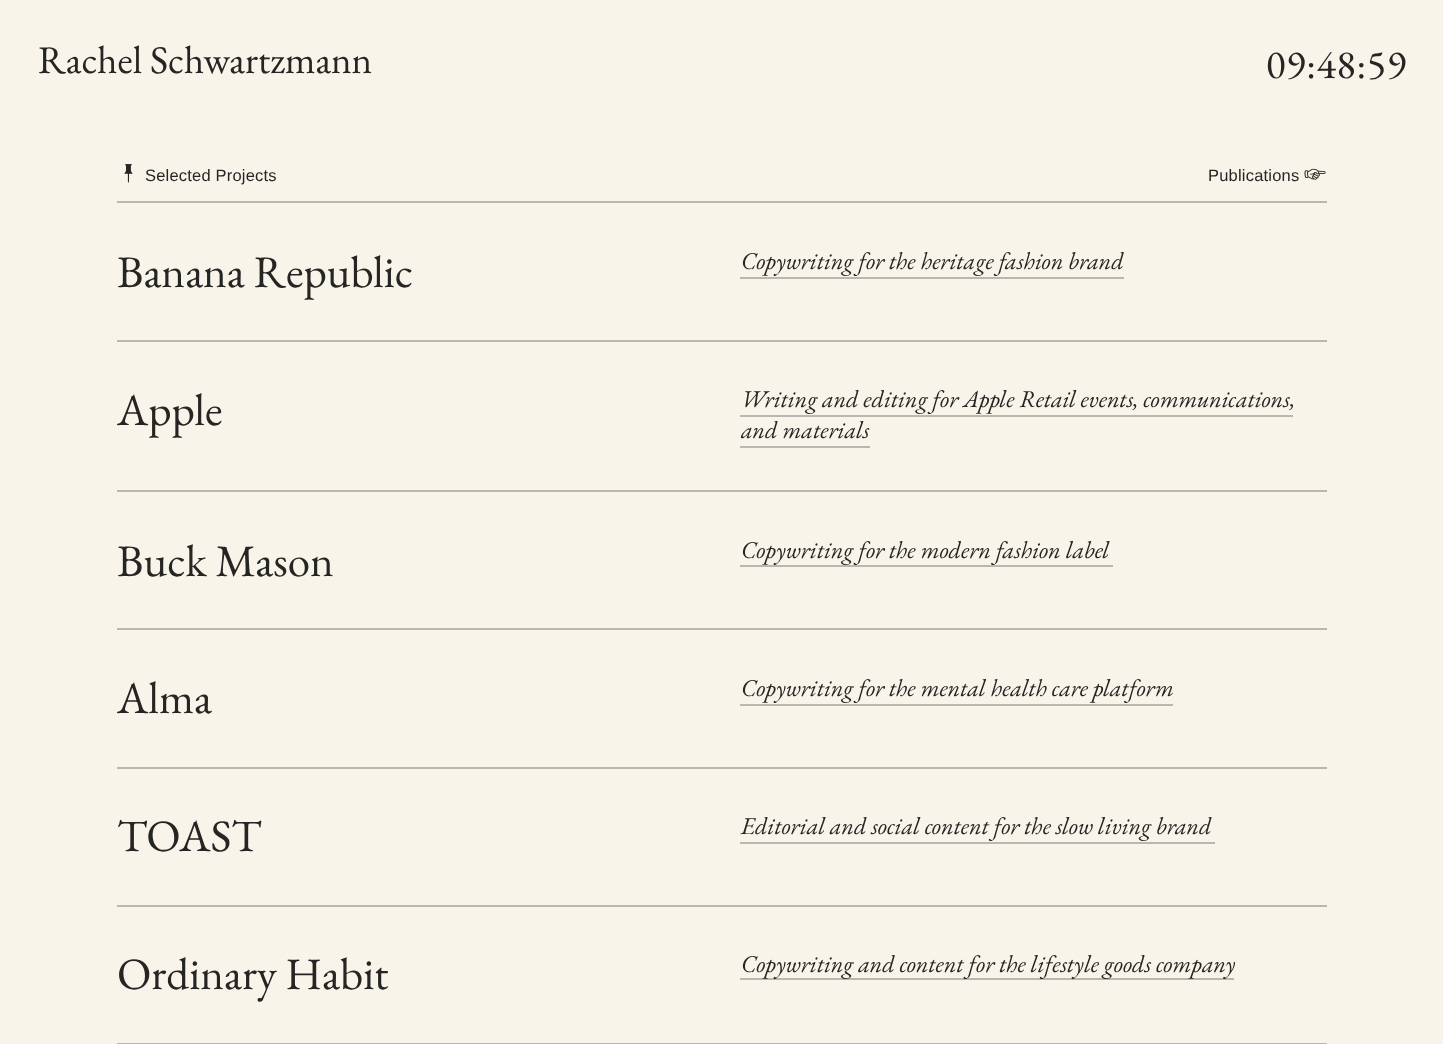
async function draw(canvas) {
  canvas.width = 1443;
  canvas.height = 1044;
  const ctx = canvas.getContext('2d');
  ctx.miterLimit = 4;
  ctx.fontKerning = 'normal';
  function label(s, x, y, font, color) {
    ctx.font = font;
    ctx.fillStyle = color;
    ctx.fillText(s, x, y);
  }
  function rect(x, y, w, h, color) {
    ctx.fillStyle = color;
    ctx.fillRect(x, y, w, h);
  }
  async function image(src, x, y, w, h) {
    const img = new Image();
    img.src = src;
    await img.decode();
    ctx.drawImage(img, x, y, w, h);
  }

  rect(0, 0, 1443, 1044, '#f9f4ea');
  label('Rachel Schwartzmann', 38, 73, '39.1px EB Garamond', '#252523');
  ctx.letterSpacing = '0.5px';
  label('09:48:59', 1266, 78, '40.5px EB Garamond', '#252523');
  await image('assets/img1.png', 124, 164, 9, 19);
  ctx.letterSpacing = '0.2px';
  label('Selected Projects', 145, 181, '16.5px Liberation Sans', '#252523');
  label('Publications', 1208, 181, '16.5px Liberation Sans', '#252523');
  await image('assets/img2.png', 1304, 168, 22, 12);
  rect(117, 201, 1210, 2, '#bbb7b0');
  ctx.letterSpacing = '0px';
  label('Banana Republic', 117, 287, '45px EB Garamond', '#252523');
  label('Copywriting for the heritage fashion brand', 741, 269, 'italic 24.1px EB Garamond', '#252523');
  rect(740, 277, 384, 2, '#bbb7b0');
  rect(117, 340, 1210, 2, '#bbb7b0');
  label('Apple', 117, 425, '45px EB Garamond', '#252523');
  label('Writing and editing for Apple Retail events, communications,', 741, 407, 'italic 24.1px EB Garamond', '#252523');
  label('and materials', 741, 438, 'italic 24.1px EB Garamond', '#252523');
  rect(740, 415, 553, 2, '#bbb7b0');
  rect(740, 446, 130, 2, '#bbb7b0');
  rect(117, 490, 1210, 2, '#bbb7b0');
  label('Buck Mason', 117, 576, '45px EB Garamond', '#252523');
  label('Copywriting for the modern fashion label', 741, 558, 'italic 24.1px EB Garamond', '#252523');
  rect(740, 565, 373, 2, '#bbb7b0');
  rect(117, 628, 1210, 2, '#bbb7b0');
  label('Alma', 117, 713, '45px EB Garamond', '#252523');
  label('Copywriting for the mental health care platform', 741, 696, 'italic 24.1px EB Garamond', '#252523');
  rect(740, 704, 433, 2, '#bbb7b0');
  rect(117, 767, 1210, 2, '#bbb7b0');
  label('TOAST', 117, 851, '45px EB Garamond', '#252523');
  label('Editorial and social content for the slow living brand', 741, 834, 'italic 24.1px EB Garamond', '#252523');
  rect(740, 842, 475, 2, '#bbb7b0');
  rect(117, 905, 1210, 2, '#bbb7b0');
  label('Ordinary Habit', 117, 989, '45px EB Garamond', '#252523');
  rect(740, 978, 494, 2, '#bbb7b0');
  label('Copywriting and content for the lifestyle goods company', 741, 972, 'italic 24.1px EB Garamond', '#252523');
  rect(117, 1043, 1210, 1, '#bbb7b0');
}

draw(document.querySelector('canvas'));
